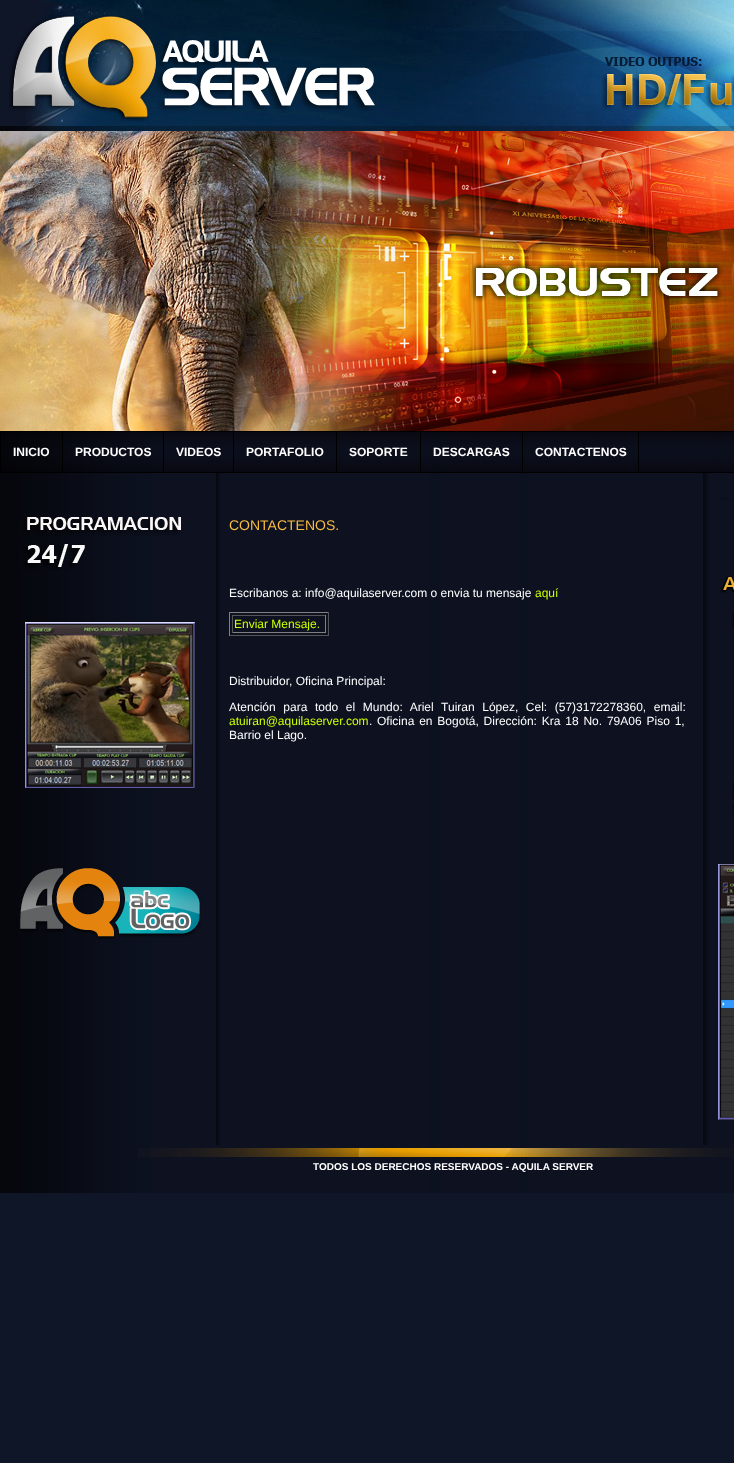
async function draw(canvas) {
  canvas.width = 734;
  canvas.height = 1463;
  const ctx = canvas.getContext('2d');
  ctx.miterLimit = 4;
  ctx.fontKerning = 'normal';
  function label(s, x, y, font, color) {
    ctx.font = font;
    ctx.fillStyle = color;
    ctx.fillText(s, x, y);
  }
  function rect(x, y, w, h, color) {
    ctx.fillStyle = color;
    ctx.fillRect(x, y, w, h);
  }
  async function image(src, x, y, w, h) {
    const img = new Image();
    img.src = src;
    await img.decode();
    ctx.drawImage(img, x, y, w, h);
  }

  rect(0, 0, 734, 1463, '#0f1628');
  await image('assets/img1.png', 26, 0, 708, 131);
  await image('assets/img2.png', 9, 15, 366, 107);
  await image('assets/img3.png', 601, 57, 133, 53);
  await image('assets/img4.png', 0, 126, 734, 1067);
  await image('assets/img5.png', 0, 131, 734, 300);
  await image('assets/img6.png', 1, 432, 733, 40);
  rect(0, 431, 734, 1, '#000');
  rect(0, 472, 734, 1, '#000');
  rect(0, 432, 1, 40, '#000');
  label('INICIO', 13, 456, 'bold 12px Liberation Sans', '#fff');
  rect(62, 432, 1, 40, '#000');
  label('PRODUCTOS', 75, 456, 'bold 12px Liberation Sans', '#fff');
  rect(163, 432, 1, 40, '#000');
  label('VIDEOS', 176, 456, 'bold 12px Liberation Sans', '#fff');
  rect(233, 432, 1, 40, '#000');
  label('PORTAFOLIO', 246, 456, 'bold 12px Liberation Sans', '#fff');
  rect(336, 432, 1, 40, '#000');
  label('SOPORTE', 349, 456, 'bold 12px Liberation Sans', '#fff');
  rect(420, 432, 1, 40, '#000');
  label('DESCARGAS', 433, 456, 'bold 12px Liberation Sans', '#fff');
  rect(638, 432, 1, 40, '#000');
  rect(522, 432, 1, 40, '#000');
  label('CONTACTENOS', 535, 456, 'bold 12px Liberation Sans', '#fff');
  await image('assets/img7.png', 23, 517, 158, 53);
  await image('assets/img8.png', 25, 622, 170, 166);
  await image('assets/img9.png', 20, 868, 181, 71);
  await image('assets/img10.png', 216, 473, 4, 672);
  label('CONTACTENOS.', 229, 530, '14px Liberation Sans', '#f8bc40');
  label('Escribanos a: info@aquilaserver.com o envia tu mensaje', 229, 597, '12px Liberation Sans', '#fff');
  label('aquí', 535, 597, '12px Liberation Sans', '#cf0');
  label('.', 558, 597, '12px Liberation Sans', '#00e');
  rect(229, 612, 100, 1, '#808080');
  rect(328, 612, 1, 24, '#555');
  rect(229, 635, 100, 1, '#555');
  rect(229, 612, 1, 24, '#808080');
  rect(232, 615, 94, 1, '#555');
  rect(325, 615, 1, 18, '#808080');
  rect(232, 632, 94, 1, '#808080');
  rect(232, 615, 1, 18, '#555');
  label('Enviar Mensaje.', 234, 628, '12px Liberation Sans', '#cf0');
  label('Distribuidor, Oficina Principal:', 229, 685, '12px Liberation Sans', '#fff');
  ctx.wordSpacing = '4.25px';
  label('Atención para todo el Mundo: Ariel Tuiran López, Cel: (57)3172278360, email:', 229, 711, '12px Liberation Sans', '#fff');
  ctx.wordSpacing = '0px';
  label('atuiran@aquilaserver.com', 229, 725, '12px Liberation Sans', '#cf0');
  label('.', 369, 725, '12px Liberation Sans', '#fff');
  ctx.wordSpacing = '1.5px';
  label('Oficina en Bogotá, Dirección: Kra 18 No. 79A06 Piso 1,', 377, 725, '12px Liberation Sans', '#fff');
  ctx.wordSpacing = '0px';
  label('Barrio el Lago.', 229, 739, '12px Liberation Sans', '#fff');
  await image('assets/img11.png', 703, 473, 5, 672);
  await image('assets/img12.png', 719, 498, 15, 132);
  await image('assets/img13.png', 732, 781, 2, 34);
  await image('assets/img14.png', 718, 864, 16, 256);
  await image('assets/img15.png', 138, 1148, 596, 9);
  label('TODOS LOS DERECHOS RESERVADOS - AQUILA SERVER', 313, 1170, 'bold 10px Liberation Sans', '#fff');
}

draw(document.querySelector('canvas'));
